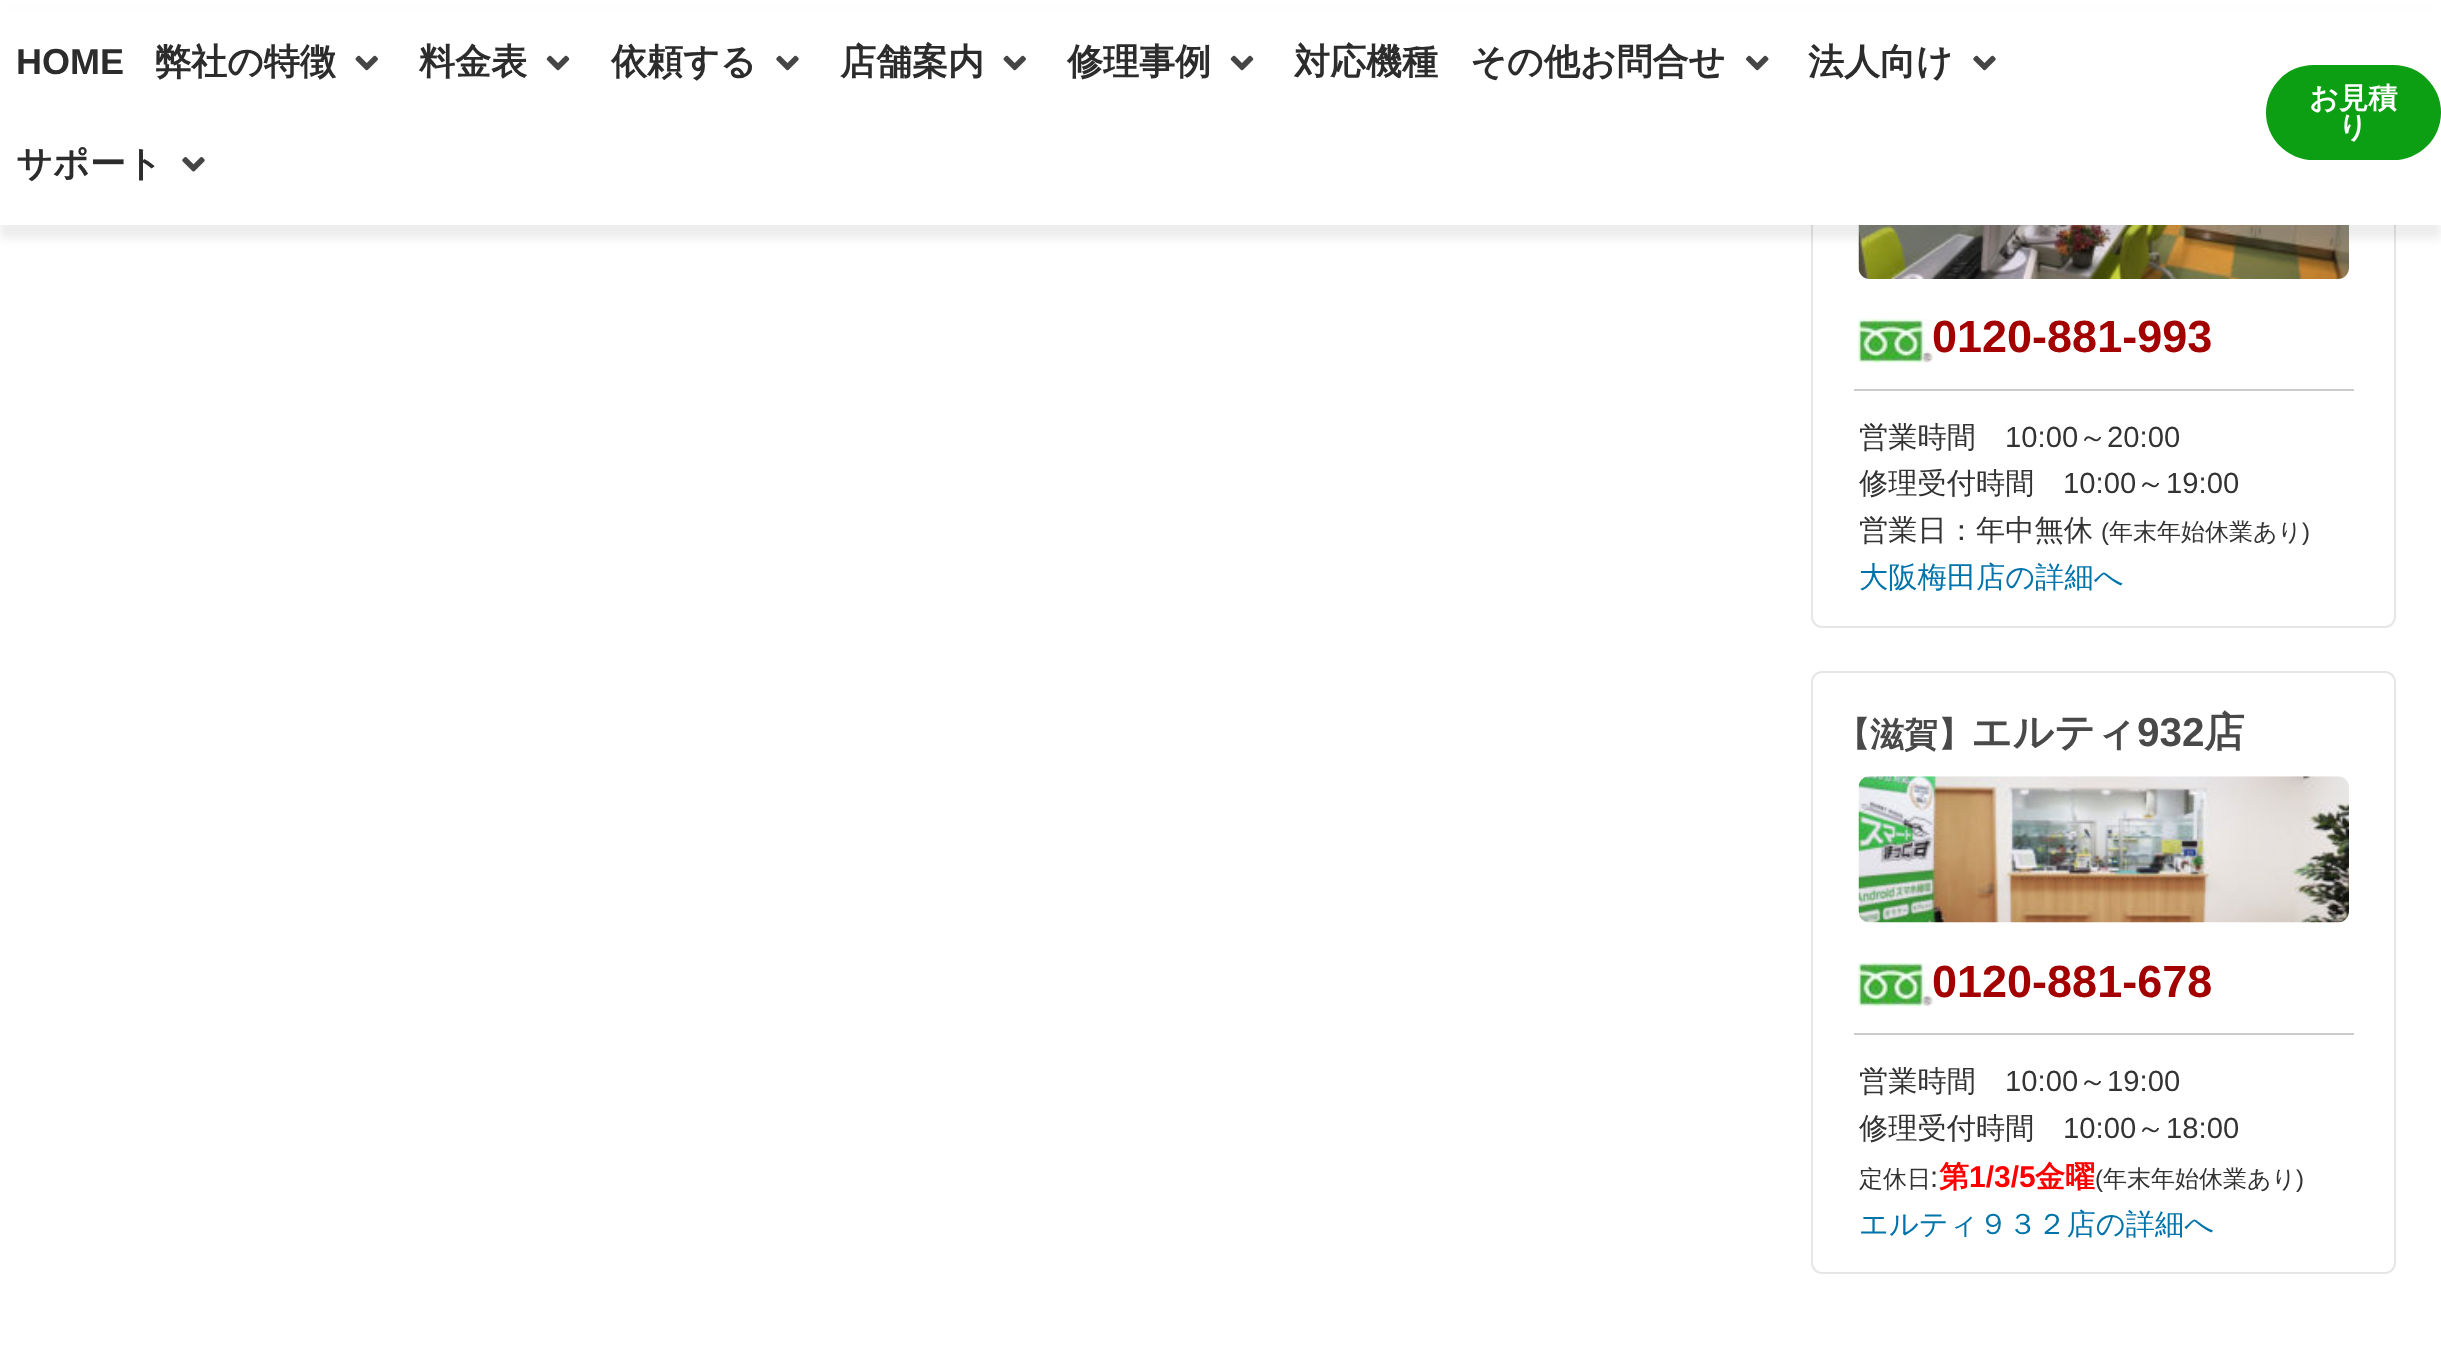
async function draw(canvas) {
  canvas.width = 2441;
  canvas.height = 1354;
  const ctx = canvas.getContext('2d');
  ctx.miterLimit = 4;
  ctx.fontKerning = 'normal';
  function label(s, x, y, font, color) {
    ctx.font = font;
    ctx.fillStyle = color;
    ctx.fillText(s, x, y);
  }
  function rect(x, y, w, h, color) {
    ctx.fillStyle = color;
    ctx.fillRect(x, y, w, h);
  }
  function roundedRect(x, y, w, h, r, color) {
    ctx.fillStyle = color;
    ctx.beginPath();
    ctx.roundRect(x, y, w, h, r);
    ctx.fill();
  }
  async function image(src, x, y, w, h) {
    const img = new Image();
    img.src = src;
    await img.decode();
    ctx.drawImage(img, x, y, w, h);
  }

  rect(0, 0, 2441, 1354, '#fff');
  ctx.beginPath();
  ctx.roundRect(1812, 28, 583, 599, 10);
  ctx.strokeStyle = '#e6e6e6';
  ctx.lineWidth = 2;
  ctx.stroke();
  await image('assets/img6.png', 1858, 225, 491, 54);
  ctx.fillStyle = '#00000012';
  ctx.filter = 'blur(4.5px)';
  ctx.beginPath();
  ctx.rect(0, 14, 2441, 225);
  ctx.fill();
  ctx.filter = 'none';
  rect(0, 9, 2441, 216, '#fff');
  label('HOME', 16, 74, 'bold 36px Liberation Sans', '#2c2c2c');
  label('弊社の特徴', 155, 74, 'bold 36px WenQuanYi Zen Hei', '#2c2c2c');
  await image('assets/img1.png', 355, 55, 23, 16);
  label('料金表', 419, 74, 'bold 36px WenQuanYi Zen Hei', '#2c2c2c');
  await image('assets/img2.png', 546, 55, 24, 16);
  label('依頼する', 611, 74, 'bold 36px WenQuanYi Zen Hei', '#2c2c2c');
  await image('assets/img3.png', 776, 55, 23, 16);
  label('店舗案内', 840, 74, 'bold 36px WenQuanYi Zen Hei', '#2c2c2c');
  await image('assets/img1.png', 1003, 55, 23, 16);
  label('修理事例', 1067, 74, 'bold 36px WenQuanYi Zen Hei', '#2c2c2c');
  await image('assets/img2.png', 1230, 55, 24, 16);
  label('対応機種', 1294, 74, 'bold 36px WenQuanYi Zen Hei', '#2c2c2c');
  label('その他お問合せ', 1470, 74, 'bold 36px WenQuanYi Zen Hei', '#2c2c2c');
  await image('assets/img4.png', 1746, 55, 23, 16);
  label('法人向け', 1808, 74, 'bold 36px WenQuanYi Zen Hei', '#2c2c2c');
  await image('assets/img3.png', 1973, 55, 23, 16);
  label('サポート', 16, 176, 'bold 36px WenQuanYi Zen Hei', '#2c2c2c');
  await image('assets/img5.png', 182, 157, 23, 15);
  roundedRect(2266, 65, 175, 95, 47.5, '#0c9e13');
  label('お見積', 2309, 108, 'bold 29.25px WenQuanYi Zen Hei', '#fff');
  label('り', 2338, 137, 'bold 29.25px WenQuanYi Zen Hei', '#fff');
  await image('assets/img7.png', 1858, 319, 75, 44);
  label('0120-881-993', 1932, 352, 'bold 45px Liberation Sans', '#a30100');
  rect(1854, 389, 500, 2, '#ccc');
  label('営業時間', 1859, 447, '500 29.25px WenQuanYi Zen Hei', '#333');
  label('10:00', 2005, 447, '29.25px Liberation Sans', '#333');
  label('～', 2078, 447, '500 29.25px WenQuanYi Zen Hei', '#333');
  label('20:00', 2107, 447, '29.25px Liberation Sans', '#333');
  label('修理受付時間', 1859, 493, '500 29.25px WenQuanYi Zen Hei', '#333');
  label('10:00', 2063, 493, '29.25px Liberation Sans', '#333');
  label('～', 2136, 493, '500 29.25px WenQuanYi Zen Hei', '#333');
  label('19:00', 2166, 493, '29.25px Liberation Sans', '#333');
  label('営業日：年中無休', 1859, 540, '500 29.25px WenQuanYi Zen Hei', '#333');
  label('(', 2101, 540, '24px Liberation Sans', '#333');
  label('年末年始休業あり', 2109, 540, '500 24px WenQuanYi Zen Hei', '#333');
  label(')', 2302, 540, '24px Liberation Sans', '#333');
  label('大阪梅田店の詳細へ', 1859, 587, '500 29.25px WenQuanYi Zen Hei', '#0073aa');
  ctx.beginPath();
  ctx.roundRect(1812, 672, 583, 601, 10);
  ctx.stroke();
  label('【滋賀】', 1836, 746, 'bold 34px WenQuanYi Zen Hei', '#494949');
  label('エルティ', 1971, 746, 'bold 40.5px WenQuanYi Zen Hei', '#494949');
  label('932', 2137, 746, 'bold 40.5px Liberation Sans', '#494949');
  label('店', 2204, 746, 'bold 40.5px WenQuanYi Zen Hei', '#494949');
  await image('assets/img8.png', 1858, 776, 491, 147);
  await image('assets/img9.png', 1858, 963, 75, 43);
  label('0120-881-678', 1932, 997, 'bold 45px Liberation Sans', '#a30100');
  rect(1854, 1033, 500, 2, '#ccc');
  label('営業時間', 1859, 1091, '500 29.25px WenQuanYi Zen Hei', '#333');
  label('10:00', 2005, 1091, '29.25px Liberation Sans', '#333');
  label('～', 2078, 1091, '500 29.25px WenQuanYi Zen Hei', '#333');
  label('19:00', 2107, 1091, '29.25px Liberation Sans', '#333');
  label('修理受付時間', 1859, 1138, '500 29.25px WenQuanYi Zen Hei', '#333');
  label('10:00', 2063, 1138, '29.25px Liberation Sans', '#333');
  label('～', 2136, 1138, '500 29.25px WenQuanYi Zen Hei', '#333');
  label('18:00', 2166, 1138, '29.25px Liberation Sans', '#333');
  label('定休日', 1859, 1187, '500 24px WenQuanYi Zen Hei', '#333');
  label(':', 1930, 1187, '29.25px Liberation Sans', '#333');
  label('第', 1939, 1187, 'bold 30px WenQuanYi Zen Hei', '#f00');
  label('1/3/5', 1969, 1187, 'bold 30px Liberation Sans', '#f00');
  label('金曜', 2035, 1187, 'bold 30px WenQuanYi Zen Hei', '#f00');
  label('(', 2095, 1187, '24px Liberation Sans', '#333');
  label('年末年始休業あり', 2103, 1187, '500 24px WenQuanYi Zen Hei', '#333');
  label(')', 2296, 1187, '24px Liberation Sans', '#333');
  label('エルティ９３２店の詳細へ', 1859, 1234, '500 29.25px WenQuanYi Zen Hei', '#0073aa');
}

draw(document.querySelector('canvas'));
